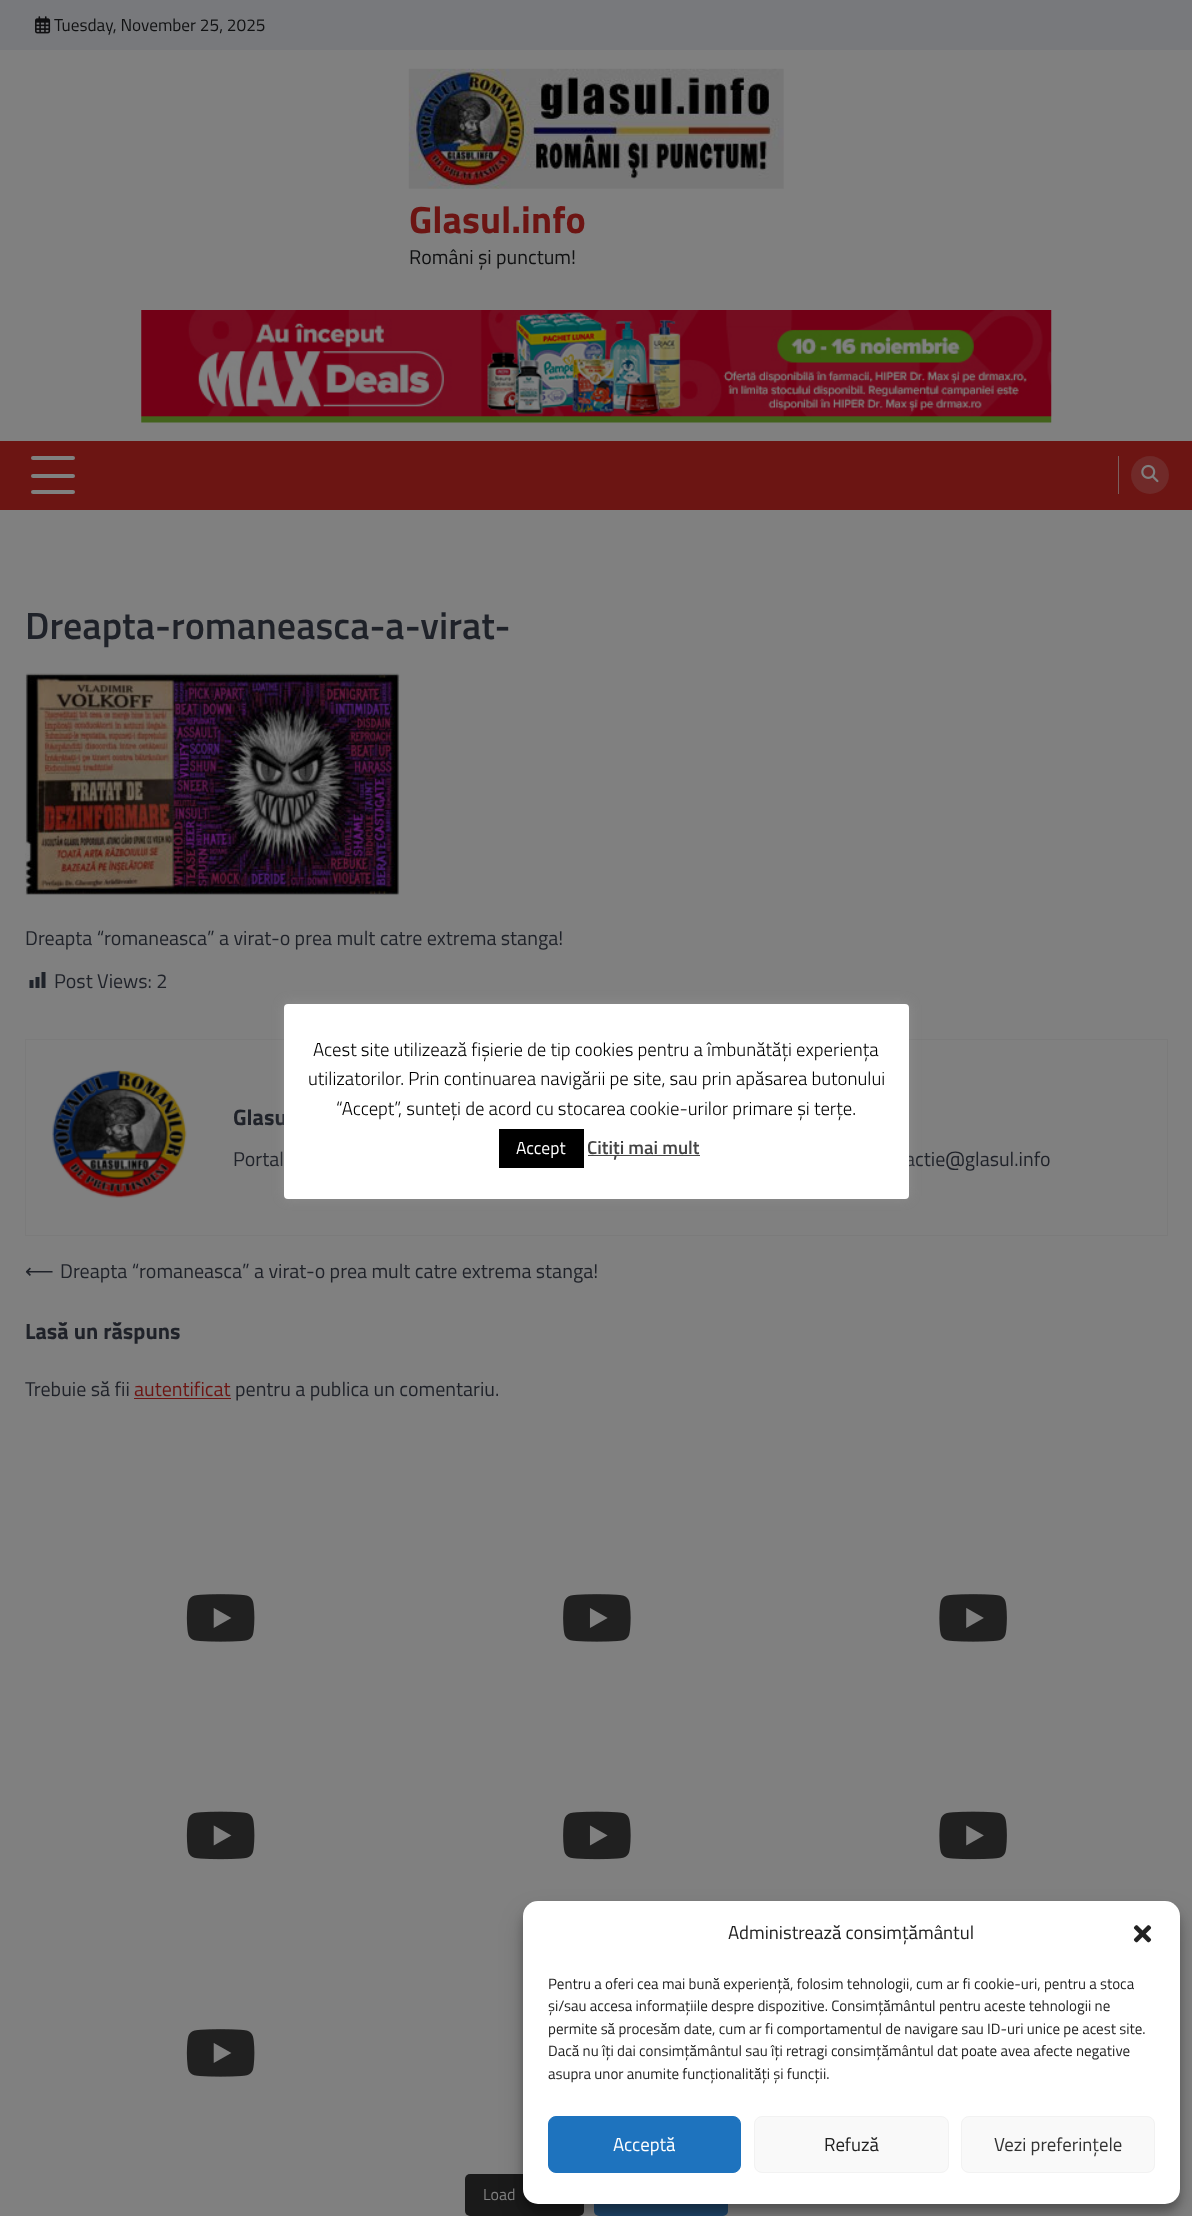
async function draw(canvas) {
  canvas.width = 1192;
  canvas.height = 2216;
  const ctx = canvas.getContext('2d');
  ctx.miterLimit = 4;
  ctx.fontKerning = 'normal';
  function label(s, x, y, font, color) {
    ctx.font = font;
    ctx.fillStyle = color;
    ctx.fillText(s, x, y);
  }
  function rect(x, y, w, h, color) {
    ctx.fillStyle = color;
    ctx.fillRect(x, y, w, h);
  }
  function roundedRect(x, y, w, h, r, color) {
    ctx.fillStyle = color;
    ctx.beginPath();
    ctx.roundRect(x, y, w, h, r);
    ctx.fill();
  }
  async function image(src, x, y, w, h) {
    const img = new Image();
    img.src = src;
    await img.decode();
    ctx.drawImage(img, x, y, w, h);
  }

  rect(0, 0, 1192, 2216, '#808080');
  rect(0, 0, 1192, 50, '#78797c');
  await image('assets/img1.png', 35, 16, 16, 18);
  label('Tuesday, November 25, 2025', 54, 31, '17.25px Titillium Web', '#101112');
  await image('assets/img2.png', 408, 68, 376, 121);
  label('Glasul.info', 409, 233, 'bold 38.1px Titillium Web', '#6c1513');
  label('Români și punctum!', 409, 264, '20px Titillium Web', '#101112');
  await image('assets/img3.png', 141, 310, 911, 113);
  rect(0, 441, 1192, 69, '#6c1513');
  roundedRect(31, 456, 44, 4, 2, '#808080');
  roundedRect(31, 474, 44, 4, 2, '#808080');
  roundedRect(31, 490, 44, 4, 2, '#808080');
  rect(1118, 456, 1, 38, '#7a605f');
  ctx.fillStyle = '#702a29';
  ctx.beginPath();
  ctx.arc(1150, 475, 19, 0, 2 * Math.PI);
  ctx.fill();
  await image('assets/img4.png', 1141, 464, 18, 19);
  label('Dreapta-romaneasca-a-virat-', 25, 639, '600 38.1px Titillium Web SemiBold', '#1f2229');
  await image('assets/img5.png', 25, 673, 375, 222);
  label('Dreapta “romaneasca” a virat-o prea mult catre extrema stanga!', 25, 945, '20px Titillium Web', '#1f2229');
  await image('assets/img6.png', 29, 972, 17, 16);
  label('Post Views: 2', 54, 988, '20px Titillium Web', '#1f2229');
  ctx.strokeStyle = '#7b7b7b';
  ctx.strokeRect(25.5, 1039.5, 1142, 196);
  await image('assets/img7.png', 52, 1070, 135, 128);
  label('Glasu', 233, 1125, 'bold 22.25px Titillium Web', '#1f2229');
  label('Portal', 233, 1166, '20px Titillium Web', '#1f2229');
  label('actie@glasul.info', 905, 1166, '20px Titillium Web', '#1f2229');
  label('⟵', 25, 1278, '20px DejaVu Sans', '#1f2229');
  label('Dreapta “romaneasca” a virat-o prea mult catre extrema stanga!', 60, 1278, '20px Titillium Web', '#1f2229');
  label('Lasă un răspuns', 25, 1339, 'bold 22.25px Titillium Web', '#1f2229');
  label('Trebuie să fii', 25, 1396, '20px Titillium Web', '#1f2229');
  label('autentificat', 134, 1396, '20px Titillium Web', '#6c1513');
  rect(134, 1398, 97, 1, '#6c1513');
  label('pentru a publica un comentariu.', 235, 1396, '20px Titillium Web', '#1f2229');
  await image('assets/img8.png', 186, 1594, 69, 48);
  await image('assets/img9.png', 563, 1594, 68, 48);
  await image('assets/img10.png', 939, 1594, 68, 48);
  await image('assets/img11.png', 186, 1811, 69, 49);
  await image('assets/img12.png', 563, 1811, 68, 49);
  await image('assets/img13.png', 939, 1811, 68, 49);
  await image('assets/img8.png', 186, 2029, 69, 48);
  roundedRect(465, 2174, 119, 42, 5, '#1a1a1a');
  label('Load', 483, 2200, '16px Titillium Web', '#808080');
  roundedRect(594, 2174, 134, 42, 5, '#204669');
  ctx.fillStyle = '#acabab4d';
  ctx.filter = 'blur(6px)';
  ctx.beginPath();
  ctx.roundRect(284, 1003, 625, 195, 4);
  ctx.fill();
  ctx.filter = 'none';
  roundedRect(284, 1004, 625, 195, 4, '#fff');
  label('Acest site utilizează fișierie de tip cookies pentru a îmbunătăți experiența', 313, 1056, '300 18.75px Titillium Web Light', '#000');
  label('utilizatorilor. Prin continuarea navigării pe site, sau prin apăsarea butonului', 308, 1085, '300 18.75px Titillium Web Light', '#000');
  label('“Accept”, sunteți de acord cu stocarea cookie-urilor primare și terțe.', 336, 1115, '300 18.75px Titillium Web Light', '#000');
  rect(499, 1129, 85, 39, '#000');
  label('Accept', 516, 1154, '17.5px Titillium Web', '#fff');
  rect(588, 1155, 112, 1, '#444');
  label('Citiți mai mult', 587, 1154, '600 18.75px Titillium Web SemiBold', '#444');
  ctx.fillStyle = '#0000003b';
  ctx.filter = 'blur(4px)';
  ctx.beginPath();
  ctx.roundRect(523, 1909, 657, 302, 15);
  ctx.fill();
  ctx.filter = 'none';
  ctx.fillStyle = '#00000030';
  ctx.filter = 'blur(12.5px)';
  ctx.beginPath();
  ctx.roundRect(523, 1914, 657, 302, 15);
  ctx.fill();
  ctx.filter = 'none';
  roundedRect(523, 1901, 657, 303, 15, '#fff');
  label('Administrează consimțământul', 728, 1939, '18.75px Titillium Web', '#222');
  await image('assets/img14.png', 1133, 1925, 19, 18);
  label('Pentru a oferi cea mai bună experiență, folosim tehnologii, cum ar fi cookie-uri, pentru a stoca', 548, 1989, '15px Titillium Web', '#222');
  label('și/sau accesa informațiile despre dispozitive. Consimțământul pentru aceste tehnologii ne', 548, 2011, '15px Titillium Web', '#222');
  label('permite să procesăm date, cum ar fi comportamentul de navigare sau ID-uri unice pe acest site.', 548, 2034, '15px Titillium Web', '#222');
  label('Dacă nu îți dai consimțământul sau îți retragi consimțământul dat poate avea afecte negative', 548, 2056, '15px Titillium Web', '#222');
  label('asupra unor anumite funcționalități și funcții.', 548, 2079, '15px Titillium Web', '#222');
  ctx.fillStyle = '#1e73be';
  ctx.beginPath();
  ctx.roundRect(548.5, 2116.5, 192, 56, 7.5);
  ctx.fill();
  ctx.strokeStyle = '#1e73be';
  ctx.stroke();
  label('Acceptă', 613, 2151, '18.75px Titillium Web', '#fff');
  ctx.fillStyle = '#f9f9f9';
  ctx.beginPath();
  ctx.roundRect(754.5, 2116.5, 194, 56, 7.5);
  ctx.fill();
  ctx.strokeStyle = '#f2f2f2';
  ctx.stroke();
  label('Refuză', 824, 2151, '18.75px Titillium Web', '#222');
  ctx.fillStyle = '#f9f9f9';
  ctx.beginPath();
  ctx.roundRect(961.5, 2116.5, 193, 56, 7.5);
  ctx.fill();
  ctx.stroke();
  label('Vezi preferințele', 994, 2151, '18.75px Titillium Web', '#333');
}

draw(document.querySelector('canvas'));
